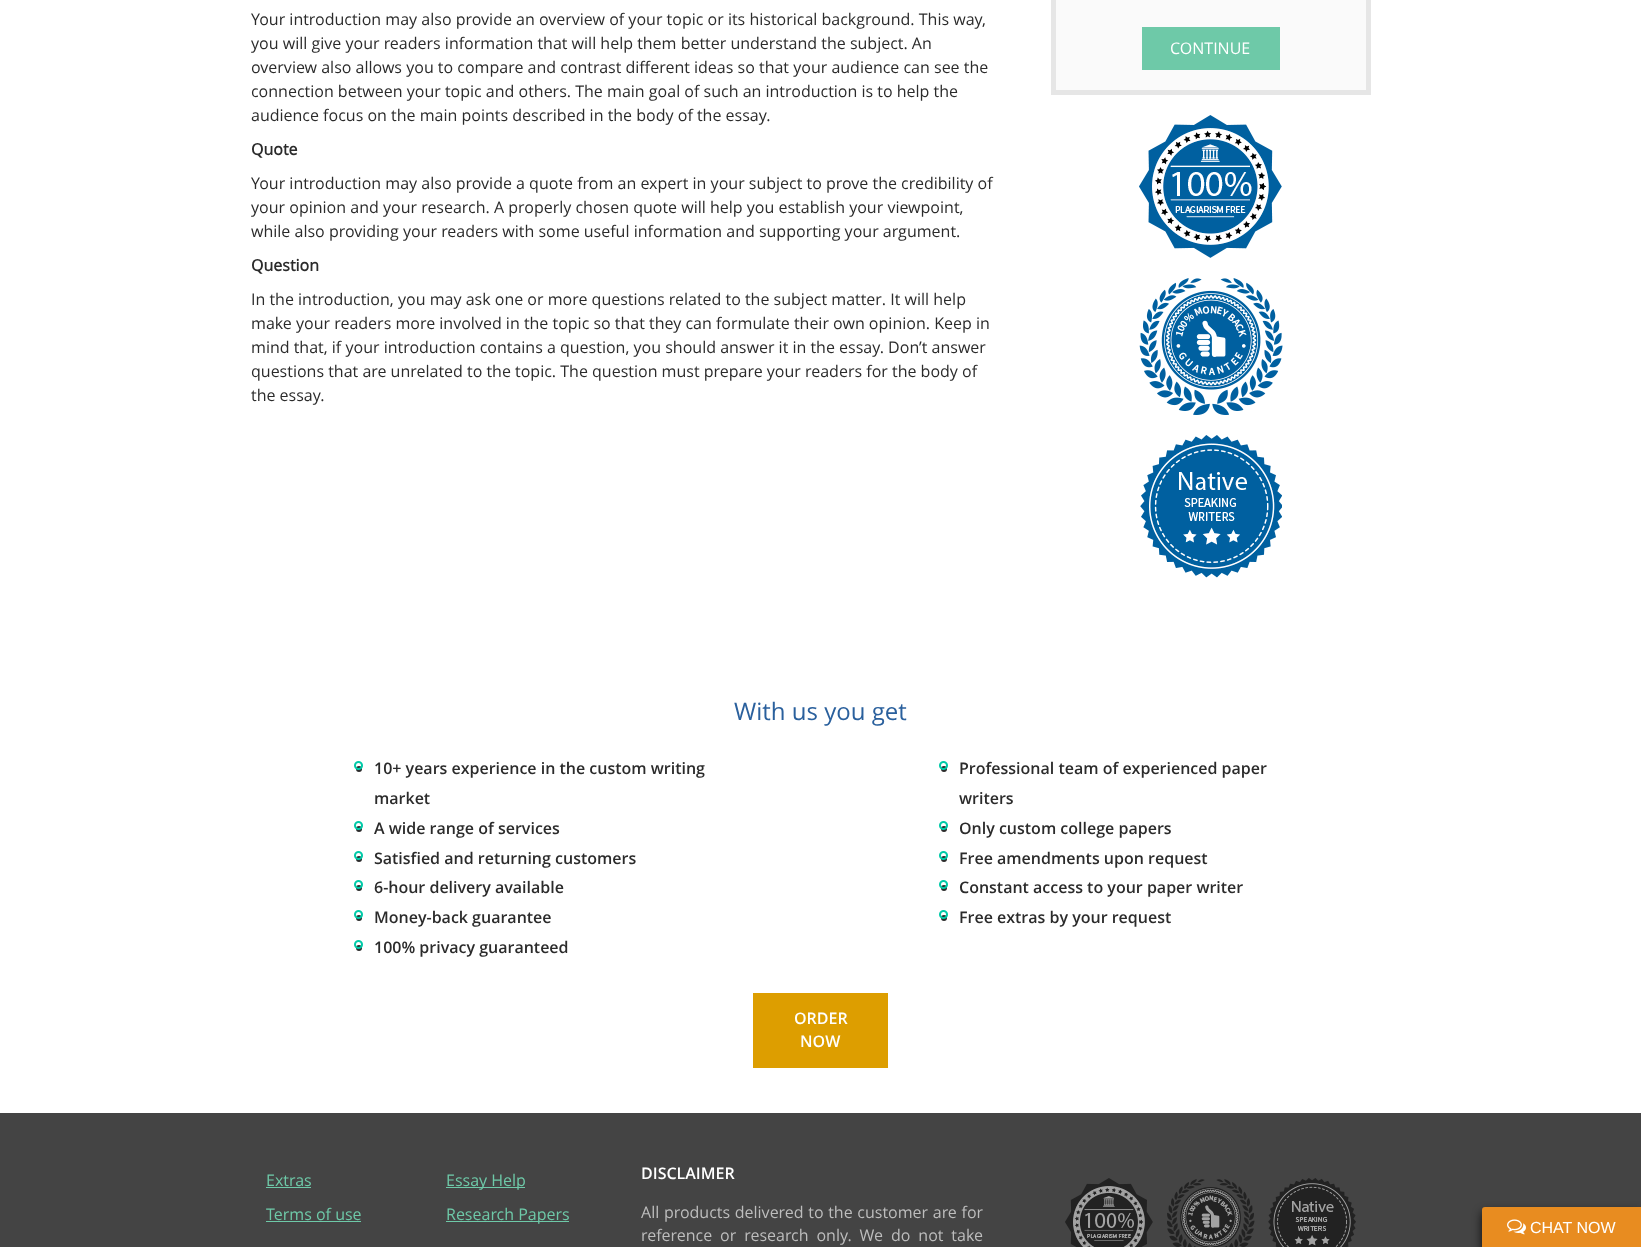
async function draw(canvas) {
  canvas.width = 1641;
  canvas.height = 1247;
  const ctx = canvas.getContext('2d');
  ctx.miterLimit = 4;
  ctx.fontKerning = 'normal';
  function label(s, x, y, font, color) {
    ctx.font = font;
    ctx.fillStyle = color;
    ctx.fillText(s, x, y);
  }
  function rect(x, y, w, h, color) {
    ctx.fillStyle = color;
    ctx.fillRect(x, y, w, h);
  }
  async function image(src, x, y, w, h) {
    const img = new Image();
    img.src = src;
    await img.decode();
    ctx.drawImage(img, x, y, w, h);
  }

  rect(0, 0, 1641, 1247, '#fff');
  label('Your introduction may also provide an overview of your topic or its historical background. This way,', 251, 25, '16px Open Sans', '#2b2b2b');
  label('you will give your readers information that will help them better understand the subject. An', 251, 49, '16px Open Sans', '#2b2b2b');
  label('overview also allows you to compare and contrast different ideas so that your audience can see the', 251, 73, '16px Open Sans', '#2b2b2b');
  label('connection between your topic and others. The main goal of such an introduction is to help the', 251, 97, '16px Open Sans', '#2b2b2b');
  label('audience focus on the main points described in the body of the essay.', 251, 121, '16px Open Sans', '#2b2b2b');
  label('Quote', 251, 155, 'bold 16px Open Sans', '#2b2b2b');
  label('Your introduction may also provide a quote from an expert in your subject to prove the credibility of', 251, 189, '16px Open Sans', '#2b2b2b');
  label('your opinion and your research. A properly chosen quote will help you establish your viewpoint,', 251, 213, '16px Open Sans', '#2b2b2b');
  label('while also providing your readers with some useful information and supporting your argument.', 251, 237, '16px Open Sans', '#2b2b2b');
  label('Question', 251, 271, 'bold 16px Open Sans', '#2b2b2b');
  label('In the introduction, you may ask one or more questions related to the subject matter. It will help', 251, 305, '16px Open Sans', '#2b2b2b');
  label('make your readers more involved in the topic so that they can formulate their own opinion. Keep in', 251, 329, '16px Open Sans', '#2b2b2b');
  label('mind that, if your introduction contains a question, you should answer it in the essay. Don’t answer', 251, 353, '16px Open Sans', '#2b2b2b');
  label('questions that are unrelated to the topic. The question must prepare your readers for the body of', 251, 377, '16px Open Sans', '#2b2b2b');
  label('the essay.', 251, 401, '16px Open Sans', '#2b2b2b');
  ctx.fillStyle = '#fafafa';
  ctx.beginPath();
  ctx.rect(1053.5, -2.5, 315, 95);
  ctx.fill();
  ctx.strokeStyle = '#e6e6e6';
  ctx.lineWidth = 5;
  ctx.stroke();
  rect(1142, 27, 138, 43, '#6ec9a8');
  label('CONTINUE', 1170, 54, '16px Open Sans', '#fff');
  await image('assets/img1.png', 1139, 115, 143, 143);
  await image('assets/img2.png', 1139, 278, 144, 137);
  await image('assets/img3.png', 1140, 435, 142, 143);
  label('With us you get', 734, 720, '24px Open Sans', '#2a609d');
  ctx.fillStyle = '#2b2b2b';
  ctx.beginPath();
  ctx.arc(359, 769, 3, 0, 2 * Math.PI);
  ctx.fill();
  await image('assets/img4.png', 354, 761, 9, 9);
  label('10+ years experience in the custom writing', 374, 774, '600 16px Open Sans', '#2b2b2b');
  label('market', 374, 804, '600 16px Open Sans', '#2b2b2b');
  ctx.beginPath();
  ctx.arc(359, 829, 3, 0, 2 * Math.PI);
  ctx.fill();
  await image('assets/img4.png', 354, 821, 9, 9);
  label('A wide range of services', 374, 834, '600 16px Open Sans', '#2b2b2b');
  ctx.beginPath();
  ctx.arc(359, 859, 3, 0, 2 * Math.PI);
  ctx.fill();
  await image('assets/img4.png', 354, 851, 9, 9);
  label('Satisfied and returning customers', 374, 864, '600 16px Open Sans', '#2b2b2b');
  ctx.beginPath();
  ctx.arc(359, 888, 3, 0, 2 * Math.PI);
  ctx.fill();
  await image('assets/img4.png', 354, 880, 9, 9);
  label('6-hour delivery available', 374, 893, '600 16px Open Sans', '#2b2b2b');
  ctx.beginPath();
  ctx.arc(359, 918, 3, 0, 2 * Math.PI);
  ctx.fill();
  await image('assets/img4.png', 354, 910, 9, 9);
  label('Money-back guarantee', 374, 923, '600 16px Open Sans', '#2b2b2b');
  ctx.beginPath();
  ctx.arc(359, 948, 3, 0, 2 * Math.PI);
  ctx.fill();
  await image('assets/img4.png', 354, 940, 9, 9);
  label('100% privacy guaranteed', 374, 953, '600 16px Open Sans', '#2b2b2b');
  ctx.beginPath();
  ctx.arc(944, 769, 3, 0, 2 * Math.PI);
  ctx.fill();
  await image('assets/img4.png', 939, 761, 9, 9);
  label('Professional team of experienced paper', 959, 774, '600 16px Open Sans', '#2b2b2b');
  label('writers', 959, 804, '600 16px Open Sans', '#2b2b2b');
  ctx.beginPath();
  ctx.arc(944, 829, 3, 0, 2 * Math.PI);
  ctx.fill();
  await image('assets/img4.png', 939, 821, 9, 9);
  label('Only custom college papers', 959, 834, '600 16px Open Sans', '#2b2b2b');
  ctx.beginPath();
  ctx.arc(944, 859, 3, 0, 2 * Math.PI);
  ctx.fill();
  await image('assets/img4.png', 939, 851, 9, 9);
  label('Free amendments upon request', 959, 864, '600 16px Open Sans', '#2b2b2b');
  ctx.beginPath();
  ctx.arc(944, 888, 3, 0, 2 * Math.PI);
  ctx.fill();
  await image('assets/img4.png', 939, 880, 9, 9);
  label('Constant access to your paper writer', 959, 893, '600 16px Open Sans', '#2b2b2b');
  ctx.beginPath();
  ctx.arc(944, 918, 3, 0, 2 * Math.PI);
  ctx.fill();
  await image('assets/img4.png', 939, 910, 9, 9);
  label('Free extras by your request', 959, 923, '600 16px Open Sans', '#2b2b2b');
  rect(753, 993, 135, 75, '#dd9e00');
  label('ORDER', 794, 1024, '600 16px Open Sans', '#fff');
  label('NOW', 800, 1047, '600 16px Open Sans', '#fff');
  rect(0, 1113, 1641, 134, '#444');
  label('Extras', 266, 1186, '16px Open Sans', '#6ec9a8');
  rect(266, 1187, 45, 1, '#6ec9a8');
  label('Terms of use', 266, 1220, '16px Open Sans', '#6ec9a8');
  rect(266, 1221, 95, 1, '#6ec9a8');
  rect(446, 1187, 79, 1, '#6ec9a8');
  label('Essay Help', 446, 1186, '16px Open Sans', '#6ec9a8');
  rect(446, 1221, 123, 1, '#6ec9a8');
  label('Research Papers', 446, 1220, '16px Open Sans', '#6ec9a8');
  label('DISCLAIMER', 641, 1179, '600 16px Open Sans', '#fff');
  ctx.wordSpacing = '0.5px';
  label('All products delivered to the customer are for', 641, 1218, '16px Open Sans', '#bdbdbd');
  ctx.wordSpacing = '3.75px';
  label('reference or research only. We do not take', 641, 1241, '16px Open Sans', '#bdbdbd');
  await image('assets/img5.png', 1065, 1178, 88, 69);
  await image('assets/img6.png', 1167, 1179, 88, 68);
  await image('assets/img7.png', 1268, 1178, 88, 69);
  ctx.fillStyle = '#000000cc';
  ctx.filter = 'blur(5px)';
  ctx.beginPath();
  ctx.roundRect(1482, 1212, 159, 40, 3);
  ctx.fill();
  ctx.filter = 'none';
  ctx.fillStyle = '#e88c20';
  ctx.beginPath();
  ctx.roundRect(1482, 1207, 159, 40, [3, 0, 0, 0]);
  ctx.fill();
  await image('assets/img8.png', 1507, 1219, 19, 16);
  ctx.wordSpacing = '0px';
  label('CHAT NOW', 1530, 1233, '16px Liberation Sans', '#fff');
}

draw(document.querySelector('canvas'));
